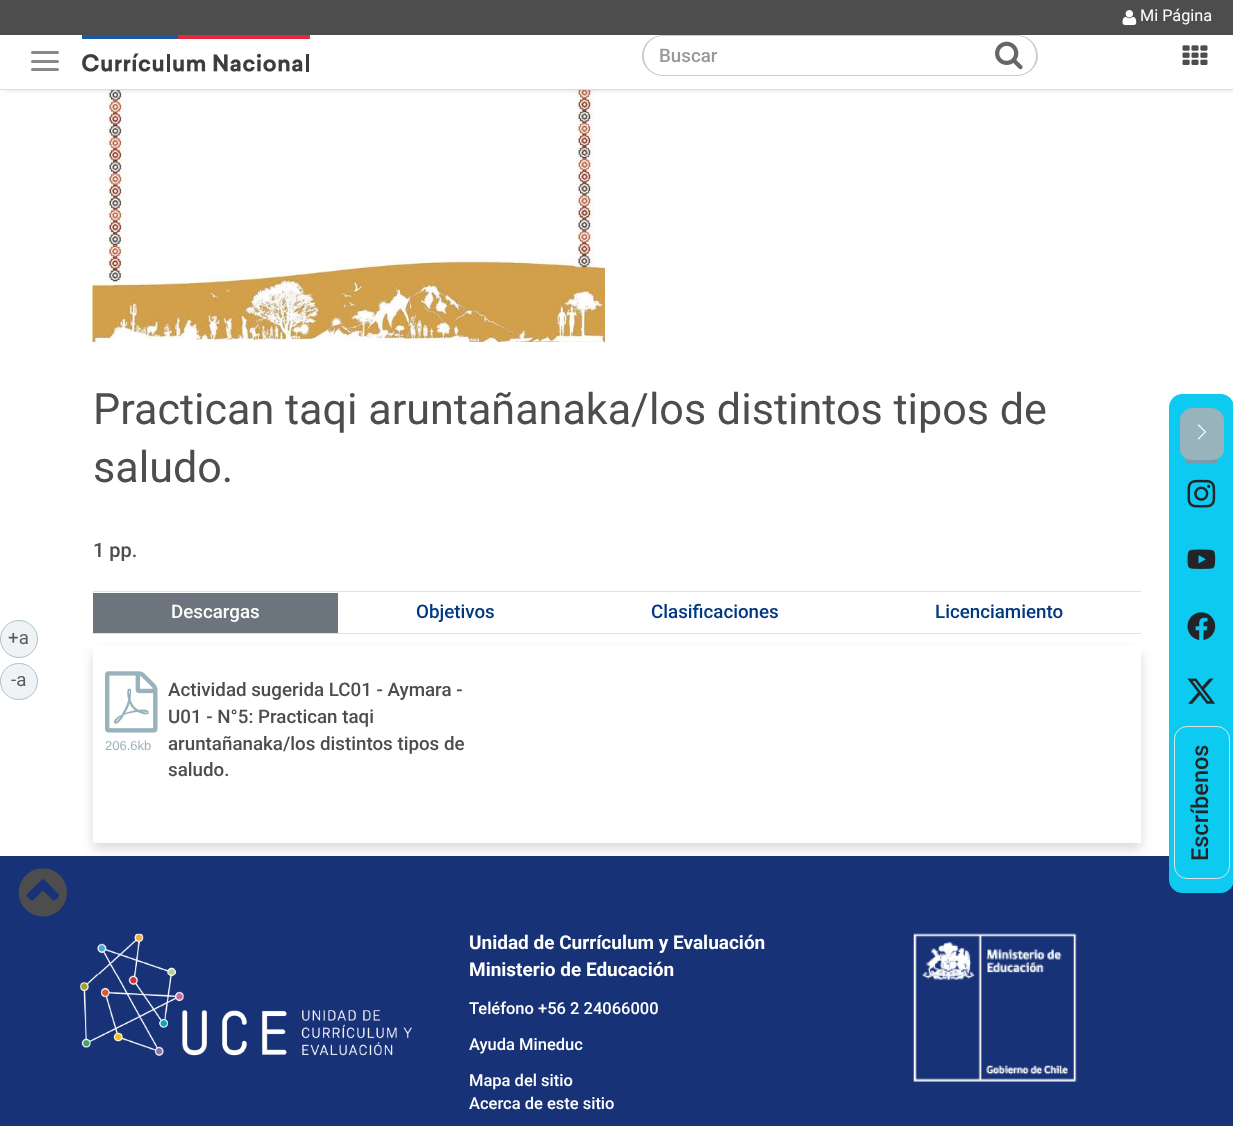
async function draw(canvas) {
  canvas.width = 1233;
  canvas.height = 1126;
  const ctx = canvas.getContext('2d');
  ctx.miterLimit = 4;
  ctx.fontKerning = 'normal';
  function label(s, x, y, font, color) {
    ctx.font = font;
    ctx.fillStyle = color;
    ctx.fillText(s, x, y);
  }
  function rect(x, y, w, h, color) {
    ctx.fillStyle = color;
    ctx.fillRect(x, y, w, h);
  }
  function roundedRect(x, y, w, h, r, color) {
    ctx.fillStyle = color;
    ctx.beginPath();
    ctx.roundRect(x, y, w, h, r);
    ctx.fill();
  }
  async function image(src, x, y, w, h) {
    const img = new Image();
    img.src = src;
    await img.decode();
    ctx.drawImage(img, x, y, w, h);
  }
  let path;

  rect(0, 0, 1233, 1126, '#fff');
  ctx.fillStyle = '#eff3f5';
  ctx.beginPath();
  ctx.arc(19, 639, 18.5, 0, 2 * Math.PI);
  ctx.fill();
  ctx.strokeStyle = '#adc2c9';
  ctx.stroke();
  label('+a', 8, 644, '18.75px Roboto', '#5c5c5c');
  ctx.fillStyle = '#eff3f5';
  ctx.beginPath();
  ctx.roundRect(0.5, 663.5, 37, 36, 18);
  ctx.fill();
  ctx.stroke();
  label('-a', 11, 686, '18.75px Roboto', '#5c5c5c');
  await image('assets/img5.png', 92, 90, 513, 252);
  ctx.fillStyle = '#00000026';
  ctx.filter = 'blur(2.5px)';
  ctx.beginPath();
  ctx.rect(5, 28, 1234, 62);
  ctx.fill();
  ctx.filter = 'none';
  rect(1, 35, 1232, 54, '#fff');
  rect(0, 89, 1233, 1, '#ddd');
  rect(0, 0, 1233, 35, '#4d4d4d');
  await image('assets/img1.png', 1122, 10, 15, 15);
  label('Mi Página', 1140, 21, '16.25px Roboto', '#fff');
  roundedRect(31, 51, 28, 3, 1.5, '#888');
  roundedRect(31, 60, 28, 3, 1.5, '#888');
  roundedRect(31, 68, 28, 3, 1.5, '#888');
  await image('assets/img2.png', 82, 35, 228, 37);
  ctx.fillStyle = '#ccc';
  path = new Path2D('M663 35H990V76H663C652 76 642 67 642 56C642 44 652 35 663 35ZM663 36H990V75H663C652 75 644 66 644 56C644 45 652 36 663 36Z');
  ctx.fill(path, 'evenodd');
  label('Buscar', 659, 62, '500 18.75px Roboto', '#999');
  ctx.fillStyle = '#ccc';
  path = new Path2D('M990 35H1017C1028 35 1038 44 1038 56C1038 67 1028 76 1017 76H990ZM990 36H1017C1028 36 1036 45 1036 56C1036 66 1028 75 1017 75H990Z');
  ctx.fill(path, 'evenodd');
  await image('assets/img3.png', 995, 41, 28, 29);
  await image('assets/img4.png', 1182, 45, 26, 20);
  label('Practican taqi aruntañanaka/los distintos tipos de', 93, 424, '43.1px Roboto', '#4d4d4d');
  label('saludo.', 93, 482, '43.1px Roboto', '#4d4d4d');
  label('1 pp.', 93, 557, '500 20px Roboto', '#4d4d4d');
  rect(93, 591, 1048, 1, '#dee2e6');
  rect(93, 633, 1048, 1, '#dee2e6');
  rect(93, 593, 245, 40, '#6c757d');
  label('Descargas', 171, 618, '500 18.75px Roboto', '#fff');
  label('Objetivos', 416, 618, '500 18.75px Roboto', '#003882');
  label('Clasificaciones', 651, 618, '500 18.75px Roboto', '#003882');
  label('Licenciamiento', 935, 618, '500 18.75px Roboto', '#003882');
  rect(0, 856, 1233, 270, '#173277');
  ctx.save();
  path = new Path2D('M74 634H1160V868H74ZM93 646H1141V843H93Z');
  ctx.clip(path, 'evenodd');
  ctx.fillStyle = '#00000026';
  ctx.filter = 'blur(6px)';
  ctx.beginPath();
  ctx.rect(93, 653, 1048, 196);
  ctx.fill();
  ctx.filter = 'none';
  ctx.restore();
  label('206.6kb', 105, 750, '13px Liberation Sans', '#98b3bc');
  await image('assets/img6.png', 105, 671, 53, 62);
  label('Actividad sugerida LC01 - Aymara -', 168, 696, '500 18.75px Roboto', '#4d4d4d');
  label('U01 - N°5: Practican taqi', 168, 723, '500 18.75px Roboto', '#4d4d4d');
  label('aruntañanaka/los distintos tipos de', 168, 750, '500 18.75px Roboto', '#4d4d4d');
  label('saludo.', 168, 776, '500 18.75px Roboto', '#4d4d4d');
  ctx.fillStyle = '#0dcaf0';
  ctx.beginPath();
  ctx.roundRect(1169.5, 394.5, 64, 498, 12.5);
  ctx.fill();
  ctx.strokeStyle = '#0dcaf0';
  ctx.stroke();
  ctx.fillStyle = '#98b3bc';
  path = new Path2D('M1192 408H1211C1218 408 1224 413 1224 420V450C1224 456 1218 460 1211 460H1192C1186 460 1180 456 1180 450V420C1180 413 1186 408 1192 408Z');
  ctx.fill(path);
  rect(1186, 460, 32, 3, '#799ca8');
  await image('assets/img7.png', 1197, 424, 9, 16);
  await image('assets/img8.png', 1187, 479, 29, 29);
  await image('assets/img9.png', 1187, 549, 29, 20);
  await image('assets/img10.png', 1187, 612, 29, 28);
  await image('assets/img11.png', 1187, 678, 29, 26);
  ctx.beginPath();
  ctx.roundRect(1174.5, 726.5, 55, 152, 12.5);
  ctx.strokeStyle = '#dee2e6';
  ctx.stroke();
  ctx.font = '500 23.5px Roboto';
  ctx.fillStyle = '#212529';
  ctx.save();
  ctx.translate(1208, 861);
  ctx.rotate(-90 * Math.PI / 180);
  ctx.fillText('Escríbenos', 0, 0);
  ctx.restore();
  await image('assets/img12.png', 18, 868, 49, 49);
  await image('assets/img13.png', 80, 933, 332, 123);
  label('Unidad de Currículum y Evaluación', 469, 949, 'bold 19px Roboto', '#fff');
  label('Ministerio de Educación', 469, 976, 'bold 19px Roboto', '#fff');
  label('Teléfono +56 2 24066000', 469, 1014, '500 16.5px Roboto', '#fff');
  label('Ayuda Mineduc', 469, 1050, '500 16.5px Roboto', '#fff');
  label('Mapa del sitio', 469, 1086, '500 16.5px Roboto', '#fff');
  label('Acerca de este sitio', 469, 1109, '500 16.5px Roboto', '#fff');
  await image('assets/img14.png', 913, 933, 164, 149);
}

draw(document.querySelector('canvas'));
